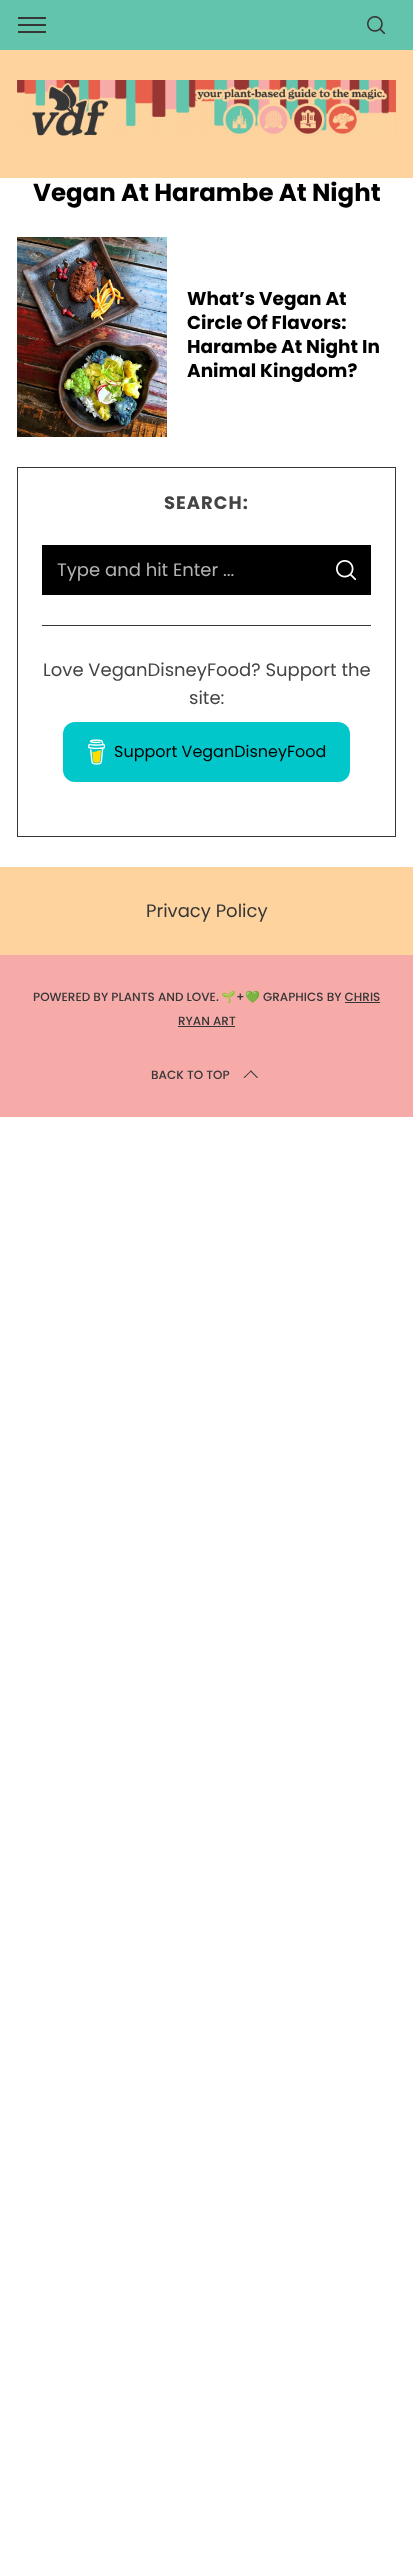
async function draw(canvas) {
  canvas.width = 413;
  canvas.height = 2570;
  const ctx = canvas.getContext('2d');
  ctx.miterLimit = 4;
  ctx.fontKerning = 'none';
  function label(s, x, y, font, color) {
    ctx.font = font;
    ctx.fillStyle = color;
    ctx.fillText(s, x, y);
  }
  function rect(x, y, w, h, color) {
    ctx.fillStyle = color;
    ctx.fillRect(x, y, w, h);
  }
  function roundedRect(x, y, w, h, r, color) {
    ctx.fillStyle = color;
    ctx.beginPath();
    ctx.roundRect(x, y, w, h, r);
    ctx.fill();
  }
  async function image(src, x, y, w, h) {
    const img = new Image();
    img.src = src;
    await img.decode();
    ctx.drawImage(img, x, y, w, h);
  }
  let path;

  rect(0, 0, 413, 2570, '#fff');
  rect(0, 0, 413, 50, '#63c4ac');
  rect(18, 24, 28, 2, '#363636');
  rect(18, 17, 28, 2, '#363636');
  rect(18, 31, 28, 2, '#363636');
  await image('assets/img1.png', 367, 16, 18, 18);
  rect(0, 50, 413, 128, '#fed39e');
  await image('assets/img2.png', 17, 80, 379, 56);
  label('Vegan At Harambe At Night', 33, 201, 'bold 24.5px Poppins', '#000');
  await image('assets/img3.png', 17, 237, 150, 200);
  label('What’s Vegan At', 187, 305, 'bold 18.5px Poppins', '#000');
  label('Circle Of Flavors:', 187, 329, 'bold 18.5px Poppins', '#000');
  label('Harambe At Night In', 187, 353, 'bold 18.5px Poppins', '#000');
  label('Animal Kingdom?', 187, 377, 'bold 18.5px Poppins', '#000');
  ctx.strokeStyle = '#363636';
  ctx.strokeRect(17.5, 467.5, 378, 369);
  rect(42, 625, 329, 1, '#363636');
  ctx.letterSpacing = '1px';
  label('SEARCH:', 164, 509, 'bold 18px Poppins', '#444');
  rect(42, 545, 329, 50, '#000');
  ctx.letterSpacing = '0px';
  label('Type and hit Enter ...', 57, 576, '18px Poppins', '#b3b3b3');
  await image('assets/img4.png', 336, 560, 20, 20);
  label('Love VeganDisneyFood? Support the', 43, 676, '18px Poppins', '#444');
  label('site:', 189, 704, '18px Poppins', '#444');
  roundedRect(63, 722, 287, 60, 12, '#02c7ca');
  await image('assets/img5.png', 88, 739, 17, 26);
  label('Support VeganDisneyFood', 114, 757, '16px Poppins', '#000');
  rect(0, 867, 413, 88, '#fed39e');
  label('Privacy Policy', 146, 917, '18px Poppins', '#363636');
  rect(0, 955, 413, 162, '#f7aba9');
  label('POWERED BY PLANTS AND LOVE.', 33, 1001, '500 12px Poppins', '#363636');
  label('🌱', 221, 1001, '12px Noto Color Emoji', '#363636');
  label('+', 236, 1001, '500 12px Poppins', '#363636');
  label('💚', 245, 1001, '12px Noto Color Emoji', '#363636');
  label('GRAPHICS BY CHRIS', 263, 1001, '500 12px Poppins', '#363636');
  label('RYAN ART', 178, 1025, '500 12px Poppins', '#363636');
  rect(345, 1002, 35, 1, '#363636');
  rect(178, 1026, 57, 1, '#363636');
  label('BACK TO TOP', 151, 1079, '500 12px Poppins', '#363636');
  path = new Path2D('M243.5 1077.5L251 1070.5L251.5 1071L244.5 1078Z');
  ctx.fill(path);
  path = new Path2D('M250 1071L251 1070.5L258 1077.5L257 1078Z');
  ctx.fill(path);
}

draw(document.querySelector('canvas'));
